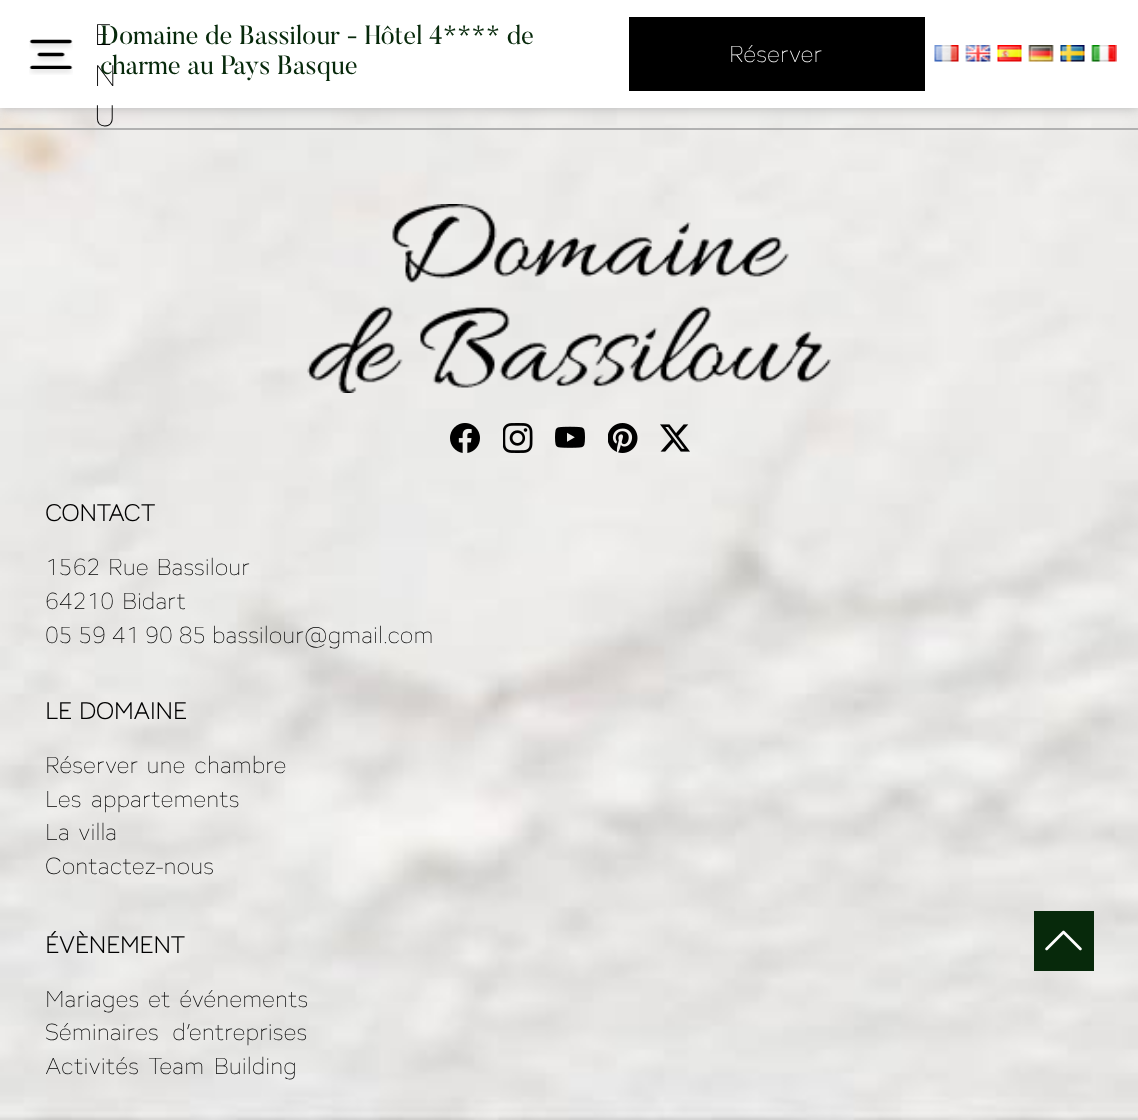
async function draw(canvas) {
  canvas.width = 1138;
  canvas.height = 1120;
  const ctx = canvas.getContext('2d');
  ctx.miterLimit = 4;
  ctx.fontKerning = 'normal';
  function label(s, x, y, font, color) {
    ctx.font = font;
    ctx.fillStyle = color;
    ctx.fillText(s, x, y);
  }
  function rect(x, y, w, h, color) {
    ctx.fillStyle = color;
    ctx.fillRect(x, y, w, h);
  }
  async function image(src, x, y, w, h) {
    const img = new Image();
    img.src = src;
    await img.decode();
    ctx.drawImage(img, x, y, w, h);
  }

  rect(0, 0, 1138, 1120, '#fff');
  await image('assets/img1.png', 0, 108, 1138, 1012);
  ctx.fillStyle = '#b3b3b3';
  ctx.filter = 'blur(6px)';
  ctx.beginPath();
  ctx.rect(0, 0, 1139, 108);
  ctx.fill();
  ctx.filter = 'none';
  rect(0, 0, 1138, 108, '#fff');
  label('E', 94, 45, '100 31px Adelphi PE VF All', '#000');
  await image('assets/img2.png', 29, 39, 44, 36);
  label('N', 94, 86, '100 31px Adelphi PE VF All', '#000');
  label('U', 94, 126, '100 31px Adelphi PE VF All', '#000');
  label('Domaine de Bassilour - Hôtel 4**** de', 100, 44, '26.4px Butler', '#07290b');
  label('charme au Pays Basque', 100, 74, '26.4px Butler', '#07290b');
  rect(629, 17, 296, 74, '#000');
  label('Réserver', 729, 62, '100 24px Adelphi PE VF All', '#fff');
  await image('assets/img3.png', 934, 45, 25, 17);
  await image('assets/img4.png', 965, 45, 26, 17);
  await image('assets/img5.png', 997, 45, 25, 17);
  await image('assets/img6.png', 1028, 45, 26, 17);
  await image('assets/img7.png', 1060, 45, 25, 17);
  await image('assets/img8.png', 1091, 45, 26, 17);
  rect(0, 128, 1138, 2, '#b1b1b1');
  await image('assets/img9.png', 307, 204, 524, 189);
  await image('assets/img10.png', 450, 423, 30, 30);
  await image('assets/img11.png', 503, 423, 30, 30);
  await image('assets/img12.png', 555, 426, 30, 22);
  await image('assets/img13.png', 608, 423, 30, 30);
  await image('assets/img14.png', 660, 424, 30, 28);
  label('CONTACT', 45, 521, 'bold 24px Adelphi PE VF All', '#000');
  ctx.wordSpacing = '2px';
  label('1562 Rue Bassilour', 45, 575, '100 24px Adelphi PE VF All', '#000');
  label('64210 Bidart', 45, 609, '100 24px Adelphi PE VF All', '#000');
  ctx.wordSpacing = '0px';
  label('05 59 41 90 85 bassilour@gmail.com', 45, 643, '100 24px Adelphi PE VF All', '#000');
  ctx.wordSpacing = '2px';
  label('LE DOMAINE', 45, 719, 'bold 24px Adelphi PE VF All', '#000');
  ctx.wordSpacing = '3px';
  label('Réserver une chambre', 45, 773, '100 24px Adelphi PE VF All', '#000');
  ctx.wordSpacing = '4px';
  label('Les appartements', 45, 807, '100 24px Adelphi PE VF All', '#000');
  ctx.wordSpacing = '3px';
  label('La villa', 45, 840, '100 24px Adelphi PE VF All', '#000');
  ctx.wordSpacing = '0px';
  label('Contactez-nous', 45, 874, '100 24px Adelphi PE VF All', '#000');
  label('ÉVÈNEMENT', 45, 953, 'bold 24px Adelphi PE VF All', '#000');
  ctx.wordSpacing = '3px';
  label('Mariages et événements', 45, 1007, '100 24px Adelphi PE VF All', '#000');
  ctx.wordSpacing = '8px';
  label('Séminaires d’entreprises', 45, 1040, '100 24px Adelphi PE VF All', '#000');
  ctx.wordSpacing = '4px';
  label('Activités Team Building', 45, 1074, '100 24px Adelphi PE VF All', '#000');
  rect(1034, 911, 60, 60, '#07290b');
  await image('assets/img15.png', 1045, 930, 37, 21);
}

draw(document.querySelector('canvas'));
